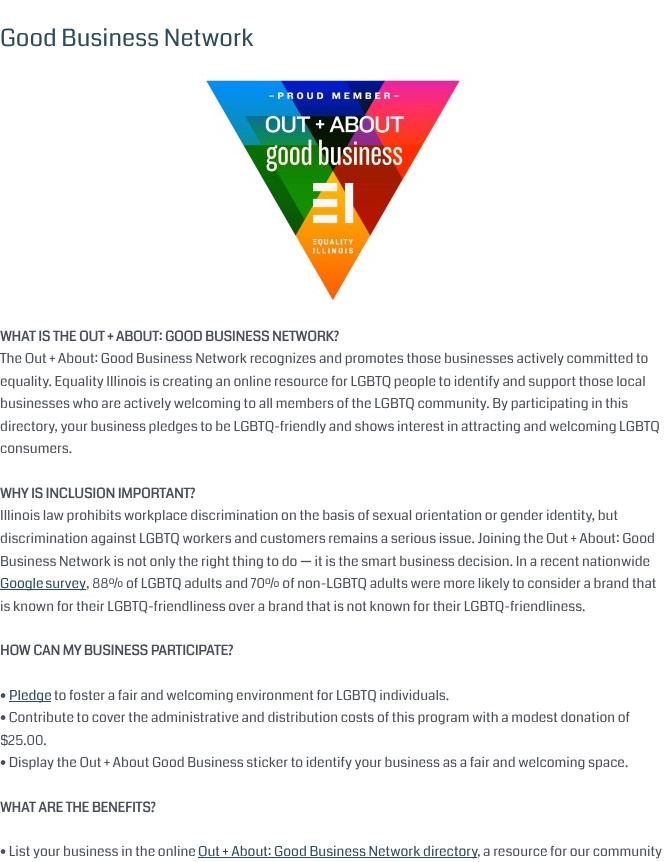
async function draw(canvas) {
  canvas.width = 665;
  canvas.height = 862;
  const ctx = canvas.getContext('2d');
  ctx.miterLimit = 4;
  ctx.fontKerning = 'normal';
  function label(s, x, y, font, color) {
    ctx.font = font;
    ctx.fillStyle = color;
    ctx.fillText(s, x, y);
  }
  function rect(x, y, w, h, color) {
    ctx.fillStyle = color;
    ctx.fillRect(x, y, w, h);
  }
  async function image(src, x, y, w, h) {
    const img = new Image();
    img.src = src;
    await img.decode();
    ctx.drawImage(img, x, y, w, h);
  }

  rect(0, 0, 665, 862, '#fff');
  label('Good Business Network', 0, 46, '23.75px Coda', '#2d4b5b');
  await image('assets/img1.png', 199, 73, 272, 231);
  label('WHAT IS THE OUT + ABOUT: GOOD BUSINESS NETWORK?', 0, 341, 'bold 13.7px Coda', '#4b4f58');
  label('The Out + About: Good Business Network recognizes and promotes those businesses actively committed to', 0, 363, '13.7px Coda', '#4b4f58');
  label('equality. Equality Illinois is creating an online resource for LGBTQ people to identify and support those local', 0, 386, '13.7px Coda', '#4b4f58');
  label('businesses who are actively welcoming to all members of the LGBTQ community. By participating in this', 0, 408, '13.7px Coda', '#4b4f58');
  label('directory, your business pledges to be LGBTQ-friendly and shows interest in attracting and welcoming LGBTQ', 0, 431, '13.7px Coda', '#4b4f58');
  label('consumers.', 0, 453, '13.7px Coda', '#4b4f58');
  label('WHY IS INCLUSION IMPORTANT?', 0, 498, 'bold 13.7px Coda', '#4b4f58');
  label('Illinois law prohibits workplace discrimination on the basis of sexual orientation or gender identity, but', 0, 520, '13.7px Coda', '#4b4f58');
  label('discrimination against LGBTQ workers and customers remains a serious issue. Joining the Out + About: Good', 0, 543, '13.7px Coda', '#4b4f58');
  label('Business Network is not only the right thing to do — it is the smart business decision. In a recent nationwide', 0, 566, '13.7px Coda', '#4b4f58');
  rect(0, 589, 86, 1, '#2d4b5b');
  ctx.wordSpacing = '-1px';
  label('Google survey', 0, 588, '13.7px Coda', '#2d4b5b');
  ctx.wordSpacing = '0px';
  label(', 88% of LGBTQ adults and 70% of non-LGBTQ adults were more likely to consider a brand that', 86, 588, '13.7px Coda', '#4b4f58');
  label('is known for their LGBTQ-friendliness over a brand that is not known for their LGBTQ-friendliness.', 0, 611, '13.7px Coda', '#4b4f58');
  label('HOW CAN MY BUSINESS PARTICIPATE?', 0, 655, 'bold 13.7px Coda', '#4b4f58');
  label('•', 0, 700, '13.7px Coda', '#4b4f58');
  rect(9, 701, 42, 1, '#2d4b5b');
  label('Pledge', 9, 700, '13.7px Coda', '#2d4b5b');
  label('to foster a fair and welcoming environment for LGBTQ individuals.', 54, 700, '13.7px Coda', '#4b4f58');
  label('• Contribute to cover the administrative and distribution costs of this program with a modest donation of', 0, 722, '13.7px Coda', '#4b4f58');
  label('$25.00.', 0, 745, '13.7px Coda', '#4b4f58');
  label('• Display the Out + About Good Business sticker to identify your business as a fair and welcoming space.', 0, 767, '13.7px Coda', '#4b4f58');
  label('WHAT ARE THE BENEFITS?', 0, 812, 'bold 13.7px Coda', '#4b4f58');
  label('• List your business in the online', 0, 856, '13.7px Coda', '#4b4f58');
  rect(198, 857, 279, 1, '#2d4b5b');
  label('Out + About: Good Business Network directory', 198, 856, '13.7px Coda', '#2d4b5b');
  label(', a resource for our community', 477, 856, '13.7px Coda', '#4b4f58');
}

draw(document.querySelector('canvas'));
